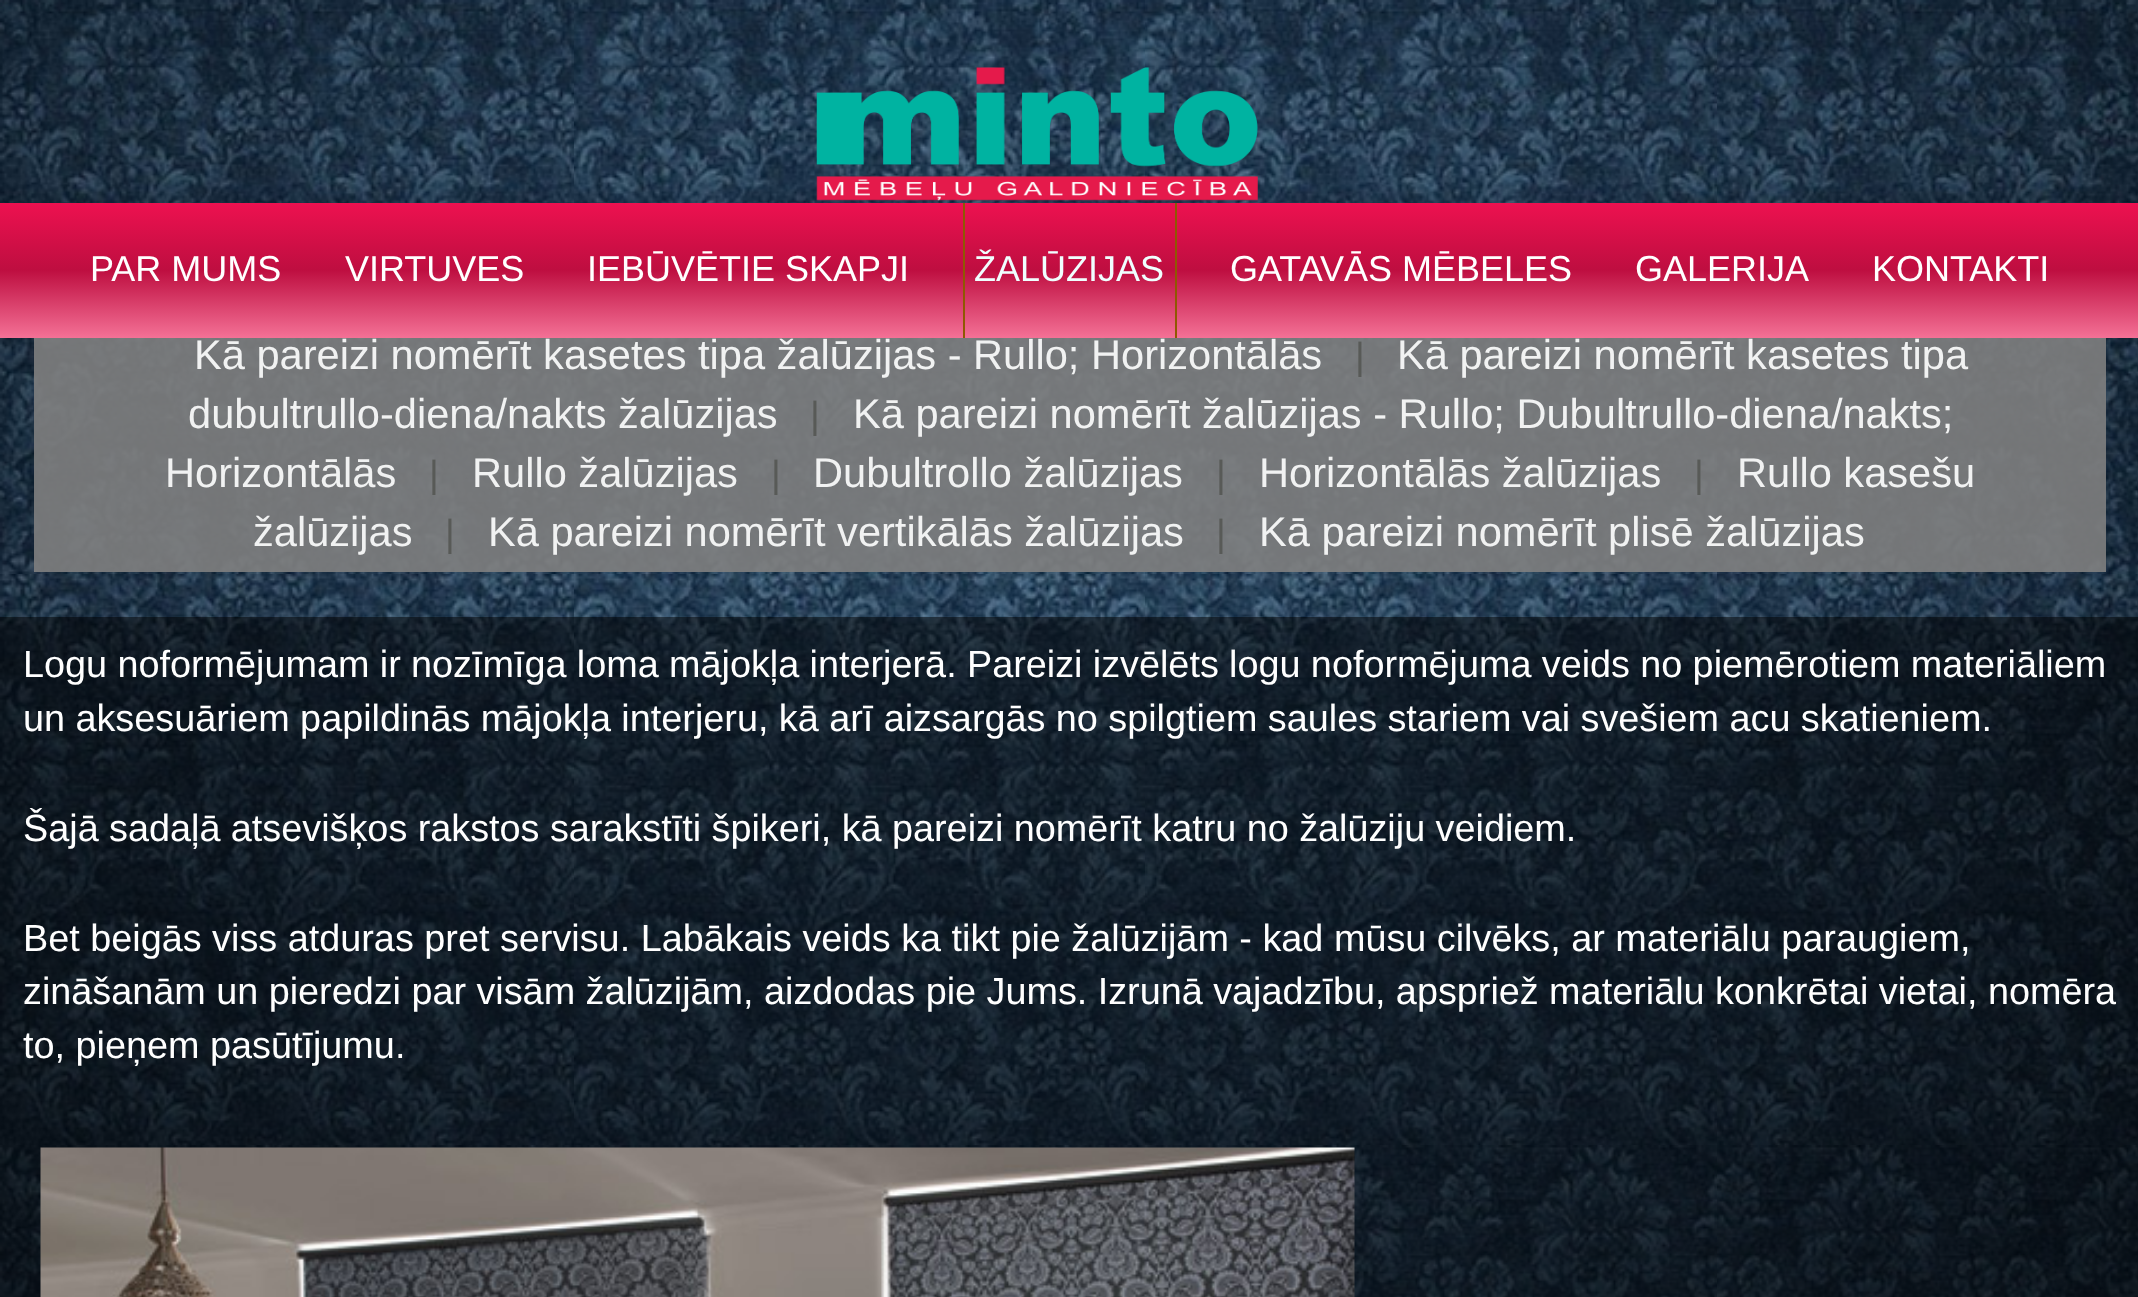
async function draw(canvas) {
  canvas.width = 2138;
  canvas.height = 1297;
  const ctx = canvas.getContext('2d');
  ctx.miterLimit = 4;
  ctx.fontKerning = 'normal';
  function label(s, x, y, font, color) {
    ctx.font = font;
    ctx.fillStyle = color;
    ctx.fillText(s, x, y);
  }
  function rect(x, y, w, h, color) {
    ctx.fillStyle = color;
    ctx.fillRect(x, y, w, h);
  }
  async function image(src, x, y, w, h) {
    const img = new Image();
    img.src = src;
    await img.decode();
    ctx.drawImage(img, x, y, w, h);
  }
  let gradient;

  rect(0, 0, 2138, 1297, '#fff');
  await image('assets/img1.png', 0, 0, 2138, 1297);
  await image('assets/img2.png', 816, 67, 442, 134);
  gradient = ctx.createLinearGradient(1070, 202, 1070, 338);
  gradient.addColorStop(0, '#ee1150');
  gradient.addColorStop(0.5, '#be0e40');
  gradient.addColorStop(1, '#f47196');
  ctx.fillStyle = gradient;
  ctx.fillRect(0, 203, 2138, 135);
  label('PAR MUMS', 90, 281, '36px Liberation Sans', '#fff');
  label('VIRTUVES', 345, 281, '36px Liberation Sans', '#fff');
  label('IEBŪVĒTIE SKAPJI', 587, 281, '36px Liberation Sans', '#fff');
  rect(1175, 203, 2, 135, '#8f5902');
  rect(963, 203, 2, 135, '#8f5902');
  label('ŽALŪZIJAS', 974, 281, '36px Liberation Sans', '#f0ffff');
  label('GATAVĀS MĒBELES', 1230, 281, '36px Liberation Sans', '#fff');
  label('GALERIJA', 1635, 281, '36px Liberation Sans', '#fff');
  label('KONTAKTI', 1872, 281, '36px Liberation Sans', '#fff');
  rect(34, 338, 2072, 234, '#808080e6');
  label('Kā pareizi nomērīt kasetes tipa žalūzijas - Rullo; Horizontālās', 194, 369, '41.6px Liberation Sans', '#f1f2f2');
  label('|', 1355, 369, '37.8px Liberation Sans', '#585a57');
  label('Kā pareizi nomērīt kasetes tipa', 1397, 369, '41.6px Liberation Sans', '#f1f2f2');
  label('dubultrullo-diena/nakts žalūzijas', 188, 428, '41.6px Liberation Sans', '#f1f2f2');
  label('|', 810, 428, '37.8px Liberation Sans', '#585a57');
  label('Kā pareizi nomērīt žalūzijas - Rullo; Dubultrullo-diena/nakts;', 853, 428, '41.6px Liberation Sans', '#f1f2f2');
  label('Horizontālās', 165, 487, '41.6px Liberation Sans', '#f1f2f2');
  label('|', 429, 487, '37.8px Liberation Sans', '#585a57');
  label('Rullo žalūzijas', 472, 487, '41.6px Liberation Sans', '#f1f2f2');
  label('|', 771, 487, '37.8px Liberation Sans', '#585a57');
  label('Dubultrollo žalūzijas', 813, 487, '41.6px Liberation Sans', '#f1f2f2');
  label('|', 1216, 487, '37.8px Liberation Sans', '#585a57');
  label('Horizontālās žalūzijas', 1259, 487, '41.6px Liberation Sans', '#f1f2f2');
  label('|', 1694, 487, '37.8px Liberation Sans', '#585a57');
  label('Rullo kasešu', 1737, 487, '41.6px Liberation Sans', '#f1f2f2');
  label('žalūzijas', 253, 546, '41.6px Liberation Sans', '#f1f2f2');
  label('|', 445, 546, '37.8px Liberation Sans', '#585a57');
  label('Kā pareizi nomērīt vertikālās žalūzijas', 488, 546, '41.6px Liberation Sans', '#f1f2f2');
  label('|', 1216, 546, '37.8px Liberation Sans', '#585a57');
  label('Kā pareizi nomērīt plisē žalūzijas', 1259, 546, '41.6px Liberation Sans', '#f1f2f2');
  rect(0, 617, 2138, 680, '#00000080');
  ctx.wordSpacing = '-0.2px';
  label('Logu noformējumam ir nozīmīga loma mājokļa interjerā. Pareizi izvēlēts logu noformējuma veids no piemērotiem materiāliem', 23, 677, '37.8px Liberation Sans', '#fff');
  ctx.wordSpacing = '-0.1px';
  label('un aksesuāriem papildinās mājokļa interjeru, kā arī aizsargās no spilgtiem saules stariem vai svešiem acu skatieniem.', 23, 731, '37.8px Liberation Sans', '#fff');
  label('Šajā sadaļā atsevišķos rakstos sarakstīti špikeri, kā pareizi nomērīt katru no žalūziju veidiem.', 23, 841, '37.8px Liberation Sans', '#fff');
  ctx.wordSpacing = '0px';
  label('Bet beigās viss atduras pret servisu. Labākais veids ka tikt pie žalūzijām - kad mūsu cilvēks, ar materiālu paraugiem,', 23, 951, '37.8px Liberation Sans', '#fff');
  ctx.wordSpacing = '-0.1px';
  label('zināšanām un pieredzi par visām žalūzijām, aizdodas pie Jums. Izrunā vajadzību, apspriež materiālu konkrētai vietai, nomēra', 23, 1004, '37.8px Liberation Sans', '#fff');
  ctx.wordSpacing = '0px';
  label('to, pieņem pasūtījumu.', 23, 1058, '37.8px Liberation Sans', '#fff');
  await image('assets/img3.png', 40, 1147, 1315, 150);
}

draw(document.querySelector('canvas'));
